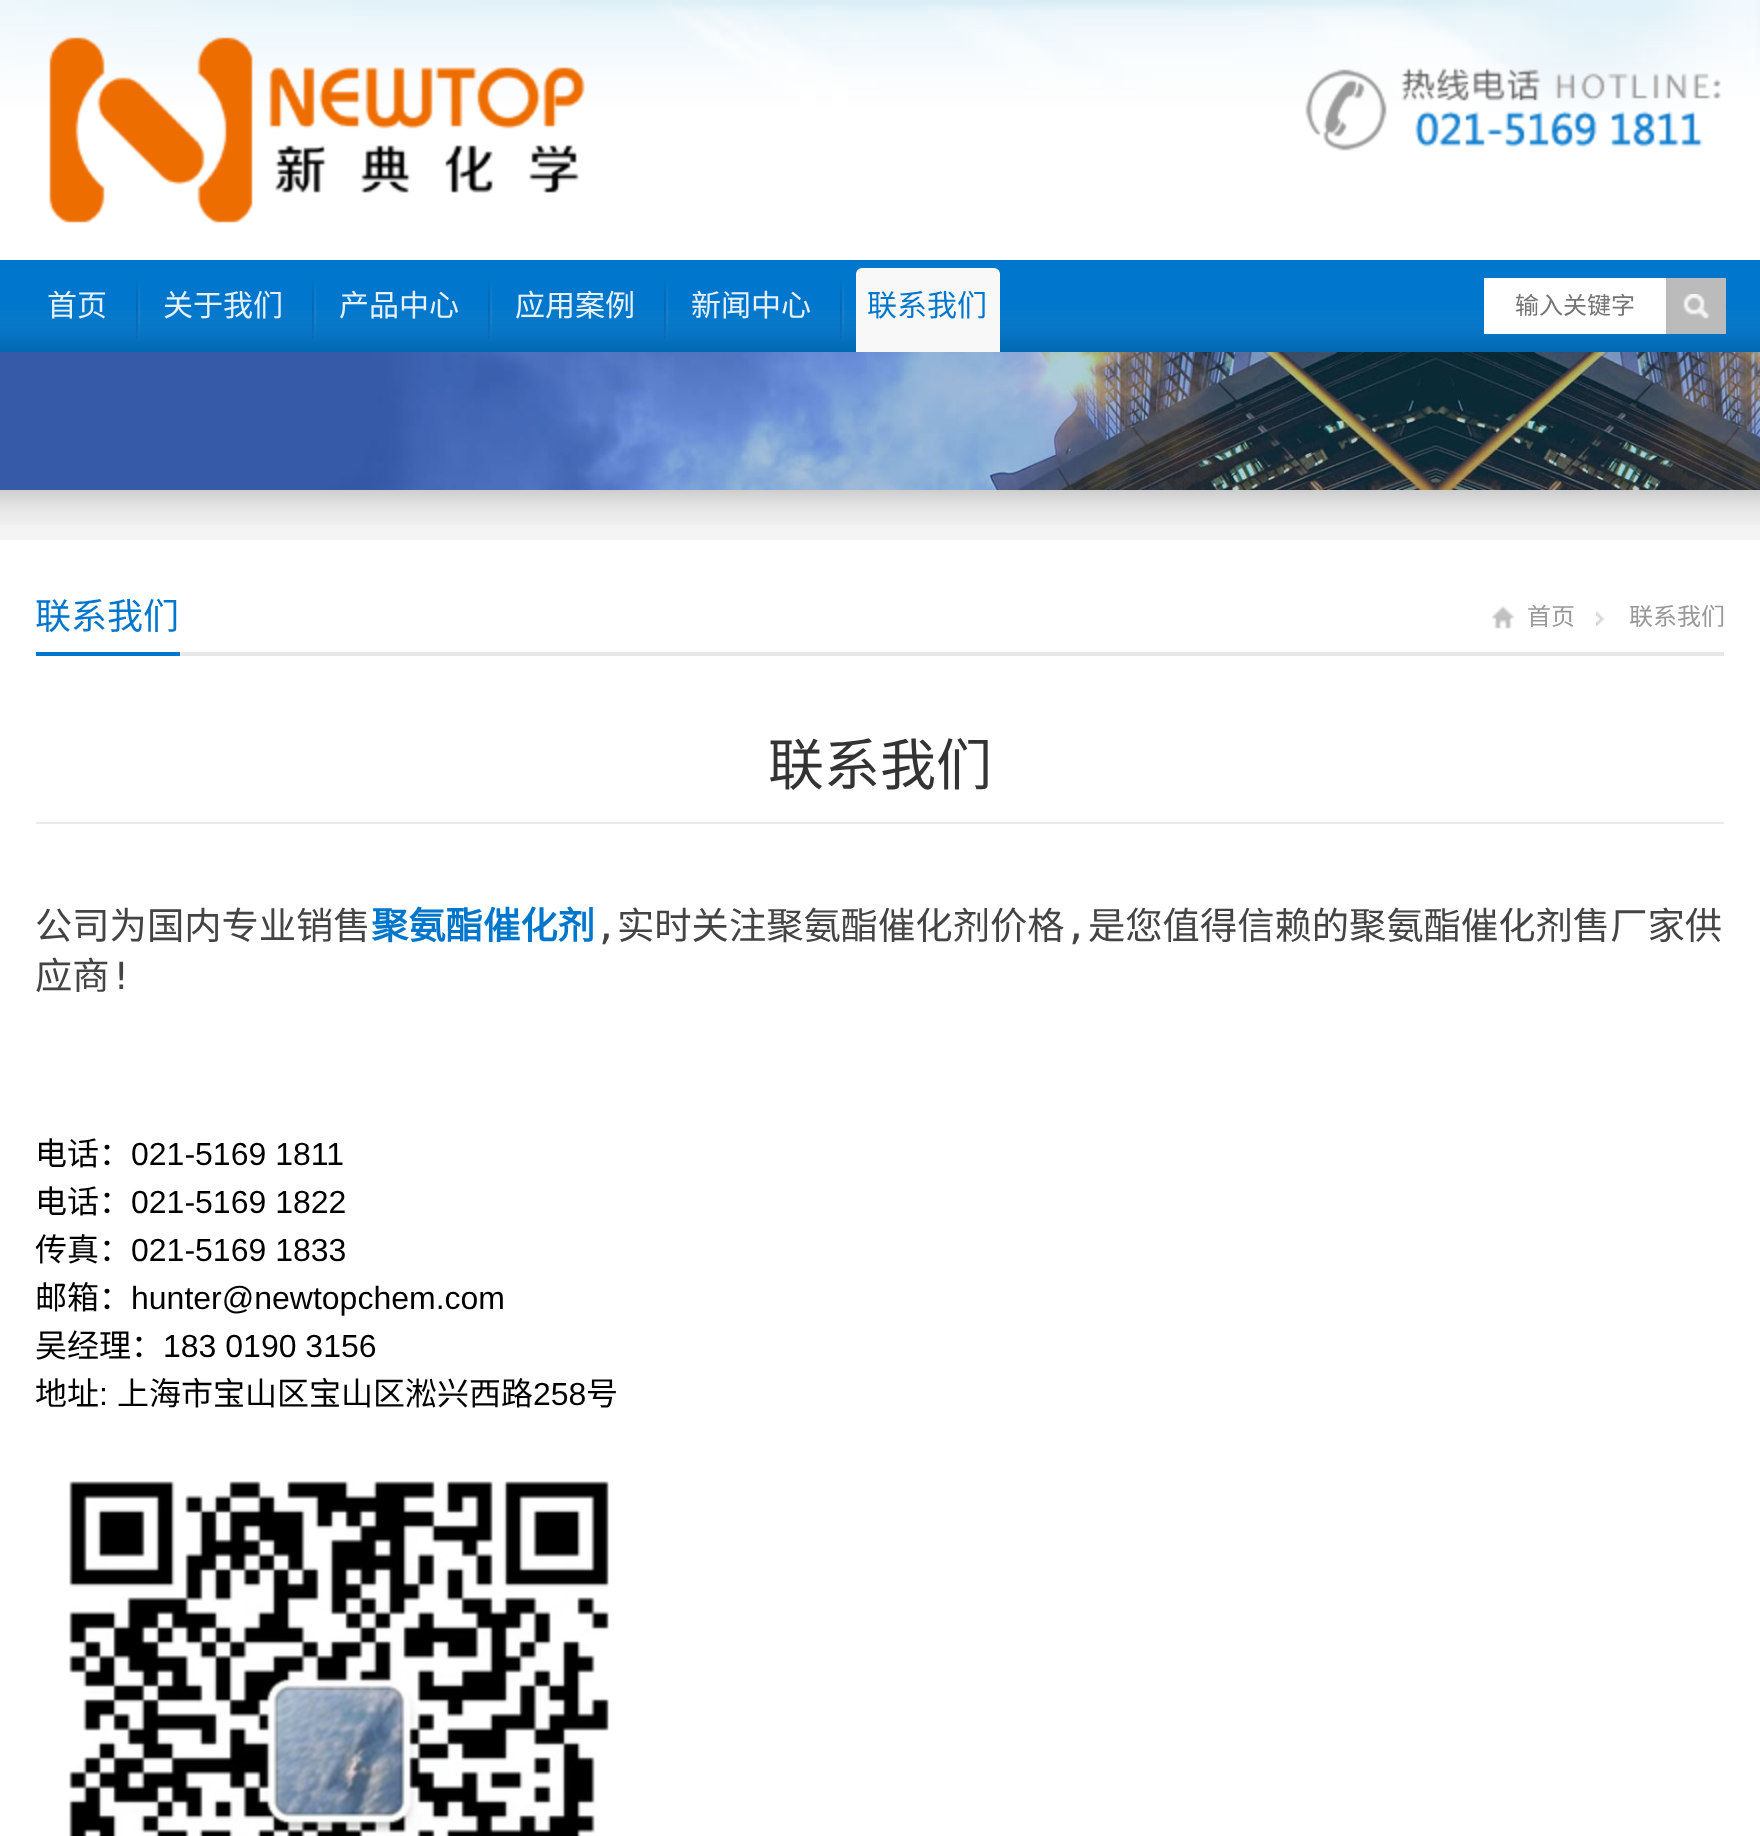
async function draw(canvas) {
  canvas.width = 1760;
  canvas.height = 1836;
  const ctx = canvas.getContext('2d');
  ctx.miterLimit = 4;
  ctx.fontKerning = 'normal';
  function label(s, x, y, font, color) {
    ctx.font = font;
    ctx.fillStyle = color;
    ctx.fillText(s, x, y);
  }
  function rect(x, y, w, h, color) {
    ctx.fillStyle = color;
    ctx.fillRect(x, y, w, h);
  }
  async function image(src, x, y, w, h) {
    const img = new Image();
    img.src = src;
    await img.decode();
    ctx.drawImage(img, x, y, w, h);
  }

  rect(0, 0, 1760, 1836, '#f4f4f4');
  rect(0, 112, 1760, 148, '#fff');
  await image('assets/img1.png', 0, 0, 1760, 112);
  await image('assets/img2.png', 49, 37, 536, 186);
  await image('assets/img3.png', 1305, 67, 416, 84);
  rect(0, 260, 1760, 92, '#07c');
  await image('assets/img4.png', 0, 310, 1760, 42);
  label('首页', 47, 316, '30px Noto Sans CJK SC', '#e6f1fa');
  await image('assets/img5.png', 136, 279, 5, 60);
  label('关于我们', 163, 316, '30px Noto Sans CJK SC', '#e6f1fa');
  await image('assets/img5.png', 312, 279, 5, 60);
  label('产品中心', 339, 316, '30px Noto Sans CJK SC', '#e6f1fa');
  await image('assets/img5.png', 488, 279, 5, 60);
  label('应用案例', 515, 316, '30px Noto Sans CJK SC', '#e6f1fa');
  await image('assets/img5.png', 664, 279, 5, 60);
  label('新闻中心', 691, 316, '30px Noto Sans CJK SC', '#e6f1fa');
  await image('assets/img5.png', 840, 279, 5, 60);
  ctx.fillStyle = '#f8f8f8';
  ctx.beginPath();
  ctx.roundRect(856, 268, 144, 84, [6, 6, 0, 0]);
  ctx.fill();
  label('联系我们', 867, 316, '30px Noto Sans CJK SC', '#07c');
  rect(1484, 278, 182, 56, '#fff');
  label('输入关键字', 1515, 314, '24px Noto Sans CJK SC', '#757575');
  rect(1666, 278, 60, 56, '#bbb');
  await image('assets/img6.png', 1683, 294, 27, 25);
  await image('assets/img7.png', 0, 352, 1760, 138);
  await image('assets/img8.png', 0, 490, 1760, 35);
  rect(0, 540, 1760, 1296, '#fff');
  rect(180, 652, 1544, 4, '#e8e8e8');
  rect(36, 652, 144, 4, '#07c');
  label('联系我们', 35, 629, '36px Noto Sans CJK SC', '#07c');
  await image('assets/img9.png', 1492, 605, 23, 24);
  label('首页', 1527, 625, '24px Noto Sans CJK SC', '#999');
  await image('assets/img10.png', 1596, 611, 9, 16);
  label('联系我们', 1629, 625, '24px Noto Sans CJK SC', '#999');
  rect(36, 822, 1688, 2, '#e9e9e9');
  label('联系我们', 768, 785, '56px Noto Sans CJK SC', '#333');
  label('公司为国内专业销售', 35, 939, '37.3px Noto Sans CJK SC', '#444');
  label('聚氨酯催化剂', 371, 939, 'bold 37.3px Noto Sans CJK SC', '#07c');
  label(',', 595, 939, '37.3px DejaVu Sans Mono', '#444');
  label('实时关注聚氨酯催化剂价格', 617, 939, '37.3px Noto Sans CJK SC', '#444');
  label(',', 1065, 939, '37.3px DejaVu Sans Mono', '#444');
  label('是您值得信赖的聚氨酯催化剂售厂家供', 1088, 939, '37.3px Noto Sans CJK SC', '#444');
  label('应商', 35, 989, '37.3px Noto Sans CJK SC', '#444');
  label('!', 110, 989, '37.3px DejaVu Sans Mono', '#444');
  label('电话：', 35, 1165, '32px Noto Sans CJK SC', '#000');
  label('021-5169 1811', 131, 1165, '32px Liberation Sans', '#000');
  label('电话：', 35, 1213, '32px Noto Sans CJK SC', '#000');
  label('021-5169 1822', 131, 1213, '32px Liberation Sans', '#000');
  label('传真：', 35, 1261, '32px Noto Sans CJK SC', '#000');
  label('021-5169 1833', 131, 1261, '32px Liberation Sans', '#000');
  label('邮箱：', 35, 1309, '32px Noto Sans CJK SC', '#000');
  label('hunter@newtopchem.com', 131, 1309, '32px Liberation Sans', '#000');
  label('吴经理：', 35, 1357, '32px Noto Sans CJK SC', '#000');
  label('183 0190 3156', 163, 1357, '32px Liberation Sans', '#000');
  label('地址', 35, 1405, '32px Noto Sans CJK SC', '#000');
  label(':', 99, 1405, '32px Liberation Sans', '#000');
  label('上海市宝山区宝山区淞兴西路', 117, 1405, '32px Noto Sans CJK SC', '#000');
  label('258', 533, 1405, '32px Liberation Sans', '#000');
  label('号', 586, 1405, '32px Noto Sans CJK SC', '#000');
  await image('assets/img11.png', 69, 1481, 540, 355);
}

draw(document.querySelector('canvas'));
